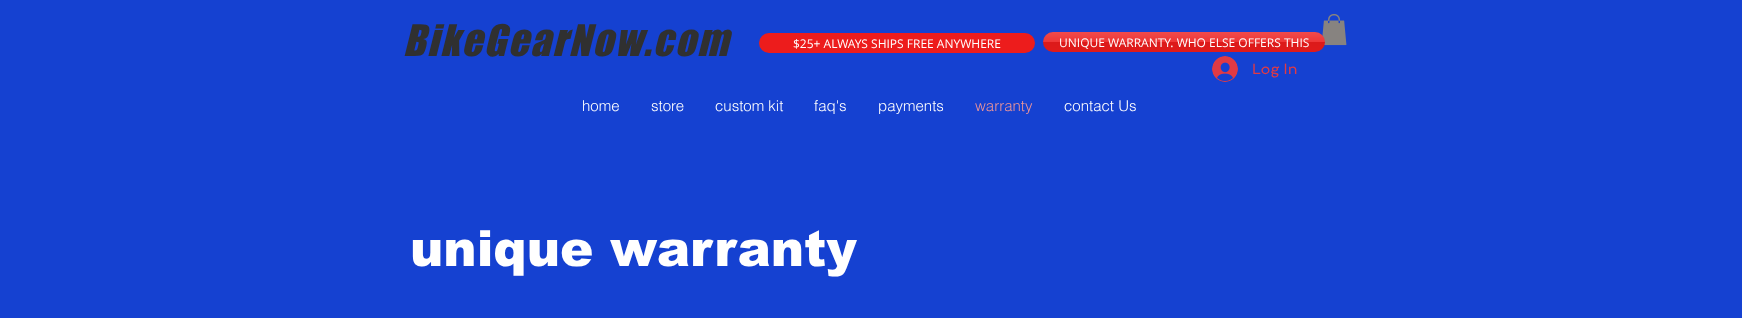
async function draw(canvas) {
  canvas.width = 1742;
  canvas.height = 318;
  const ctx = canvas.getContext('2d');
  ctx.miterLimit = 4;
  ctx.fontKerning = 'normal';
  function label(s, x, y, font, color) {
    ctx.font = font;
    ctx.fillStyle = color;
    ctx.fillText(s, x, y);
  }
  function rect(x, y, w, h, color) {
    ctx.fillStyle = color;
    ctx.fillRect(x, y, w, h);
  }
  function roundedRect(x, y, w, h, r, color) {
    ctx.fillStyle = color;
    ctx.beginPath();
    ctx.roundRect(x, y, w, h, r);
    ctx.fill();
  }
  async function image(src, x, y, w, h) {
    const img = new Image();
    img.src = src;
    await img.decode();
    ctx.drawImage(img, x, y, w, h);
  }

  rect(0, 0, 1742, 318, '#1541d1');
  ctx.letterSpacing = '2px';
  label('BikeGearNow.com', 403, 56, 'italic 40px "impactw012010"', '#303030');
  roundedRect(759, 33, 276, 20, 10, '#ed1c1c');
  ctx.letterSpacing = '0px';
  label('$25+ ALWAYS SHIPS FREE ANYWHERE', 793, 48, '12px Open Sans', '#fff');
  await image('assets/img2.png', 1322, 14, 25, 32);
  roundedRect(1043, 32, 282, 20, 10, '#ed1c1c');
  await image('assets/img1.png', 1043, 32, 282, 20);
  label('UNIQUE WARRANTY. WHO ELSE OFFERS THIS', 1059, 47, '12px Open Sans', '#fff');
  await image('assets/img3.png', 1212, 56, 26, 26);
  label('Log In', 1252, 74, '15px Spinnaker', '#e13a44');
  label('home', 582, 111, '300 15px helvetica', '#fff');
  label('store', 651, 111, '300 15px helvetica', '#fff');
  label('custom kit', 715, 111, '300 15px helvetica', '#fff');
  label('faq\'s', 814, 111, '300 15px helvetica', '#fff');
  label('payments', 878, 111, '300 15px helvetica', '#fff');
  label('warranty', 975, 111, '300 15px helvetica', '#eb9499');
  label('contact Us', 1064, 111, '300 15px helvetica', '#fff');
  label('unique warranty', 410, 266, '900 50px arial', '#fff');
}

draw(document.querySelector('canvas'));
